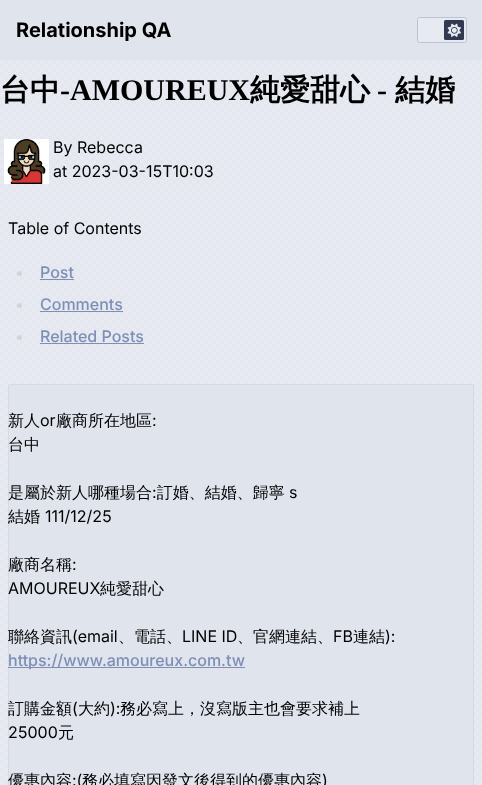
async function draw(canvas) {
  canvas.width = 482;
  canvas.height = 785;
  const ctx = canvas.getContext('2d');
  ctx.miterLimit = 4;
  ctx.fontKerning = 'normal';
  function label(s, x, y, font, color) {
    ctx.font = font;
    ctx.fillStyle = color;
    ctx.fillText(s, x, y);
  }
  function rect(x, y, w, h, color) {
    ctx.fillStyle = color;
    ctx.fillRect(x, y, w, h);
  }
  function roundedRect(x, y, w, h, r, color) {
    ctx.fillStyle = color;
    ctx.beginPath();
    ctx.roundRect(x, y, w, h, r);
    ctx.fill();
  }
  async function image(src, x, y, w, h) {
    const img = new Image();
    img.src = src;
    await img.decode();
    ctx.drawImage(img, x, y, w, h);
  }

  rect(0, 0, 482, 785, '#e8eaf1');
  await image('assets/img1.png', 0, 60, 482, 725);
  rect(0, 0, 482, 60, '#e0e4ed');
  label('Relationship QA', 16, 37, 'bold 20px Inter', '#000');
  ctx.beginPath();
  ctx.roundRect(417.5, 17.5, 49, 25, 2.5);
  ctx.strokeStyle = '#bbc3d7';
  ctx.stroke();
  roundedRect(418, 18, 48, 24, 2, '#e8eaf1');
  roundedRect(444, 20, 20, 20, 1.5, '#313a50');
  await image('assets/img2.png', 447, 23, 14, 14);
  label('台中', 0, 100, 'bold 30px WenQuanYi Zen Hei', '#000');
  label('-AMOUREUX', 60, 100, 'bold 30px Liberation Serif', '#000');
  label('純愛甜心', 250, 100, 'bold 30px WenQuanYi Zen Hei', '#000');
  label('-', 377, 100, 'bold 30px Liberation Serif', '#000');
  label('結婚', 395, 100, 'bold 30px WenQuanYi Zen Hei', '#000');
  await image('assets/img3.png', 4, 139, 45, 45);
  label('By Rebecca', 53, 153, '16px Inter', '#000');
  label('at 2023-03-15T10:03', 53, 177, '16px Inter', '#000');
  label('Table of Contents', 8, 234, '16px Inter', '#000');
  ctx.fillStyle = '#d1d5db';
  ctx.beginPath();
  ctx.arc(19.5, 273.5, 2.5, 0, 2 * Math.PI);
  ctx.fill();
  label('Post', 40, 278, '500 16px Inter', '#7e8fb5');
  rect(40, 279, 34, 1, '#7e8fb5');
  ctx.fillStyle = '#d1d5db';
  ctx.beginPath();
  ctx.arc(19.5, 305.5, 2.5, 0, 2 * Math.PI);
  ctx.fill();
  label('Comments', 40, 310, '500 16px Inter', '#7e8fb5');
  rect(40, 311, 83, 1, '#7e8fb5');
  ctx.fillStyle = '#d1d5db';
  ctx.beginPath();
  ctx.arc(19.5, 337.5, 2.5, 0, 2 * Math.PI);
  ctx.fill();
  label('Related Posts', 40, 342, '500 16px Inter', '#7e8fb5');
  rect(40, 343, 104, 1, '#7e8fb5');
  ctx.fillStyle = '#e0e4ed';
  ctx.beginPath();
  ctx.roundRect(8, 384, 466, 401, [2, 2, 0, 0]);
  ctx.fill();
  ctx.beginPath();
  ctx.roundRect(8.5, 384.5, 465, 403, 1.5);
  ctx.strokeStyle = '#d6dae2';
  ctx.stroke();
  label('新人', 8, 426, '500 16px WenQuanYi Zen Hei', '#000');
  label('or', 40, 426, '16px Inter', '#000');
  label('廠商所在地區', 56, 426, '500 16px WenQuanYi Zen Hei', '#000');
  label(':', 152, 426, '16px Inter', '#000');
  label('台中', 8, 450, '500 16px WenQuanYi Zen Hei', '#000');
  label('是屬於新人哪種場合 訂婚、結婚、歸寧', 8, 498, '500 16px WenQuanYi Zen Hei', '#000');
  label(':', 152, 498, '16px Inter', '#000');
  label('s', 289, 498, '16px Inter', '#000');
  label('結婚', 8, 522, '500 16px WenQuanYi Zen Hei', '#000');
  label('111/12/25', 45, 522, '16px Inter', '#000');
  label('廠商名稱', 8, 570, '500 16px WenQuanYi Zen Hei', '#000');
  label(':', 72, 570, '16px Inter', '#000');
  label('AMOUREUX', 8, 594, '16px Inter', '#000');
  label('純愛甜心', 100, 594, '500 16px WenQuanYi Zen Hei', '#000');
  label('聯絡資訊', 8, 642, '500 16px WenQuanYi Zen Hei', '#000');
  label('(email', 72, 642, '16px Inter', '#000');
  label('、電話、', 118, 642, '500 16px WenQuanYi Zen Hei', '#000');
  label('LINE ID', 182, 642, '16px Inter', '#000');
  label('、官網連結、', 237, 642, '500 16px WenQuanYi Zen Hei', '#000');
  label('FB', 333, 642, '16px Inter', '#000');
  label('連結', 353, 642, '500 16px WenQuanYi Zen Hei', '#000');
  label('):', 385, 642, '16px Inter', '#000');
  rect(8, 667, 237, 1, '#7e8fb5');
  label('https://www.amoureux.com.tw', 8, 666, '500 16px Inter', '#7e8fb5');
  label('訂購金額', 8, 714, '500 16px WenQuanYi Zen Hei', '#000');
  label('(', 72, 714, '16px Inter', '#000');
  label('大約', 78, 714, '500 16px WenQuanYi Zen Hei', '#000');
  label('):', 110, 714, '16px Inter', '#000');
  label('務必寫上，沒寫版主也會要求補上', 120, 714, '500 16px WenQuanYi Zen Hei', '#000');
  label('25000', 8, 738, '16px Inter', '#000');
  label('元', 58, 738, '500 16px WenQuanYi Zen Hei', '#000');
  label('優惠內容', 8, 786, '500 16px WenQuanYi Zen Hei', '#000');
  label(':(', 72, 786, '16px Inter', '#000');
  label('務必填寫因發文後得到的優惠內容', 82, 786, '500 16px WenQuanYi Zen Hei', '#000');
  label(')', 322, 786, '16px Inter', '#000');
}

draw(document.querySelector('canvas'));
